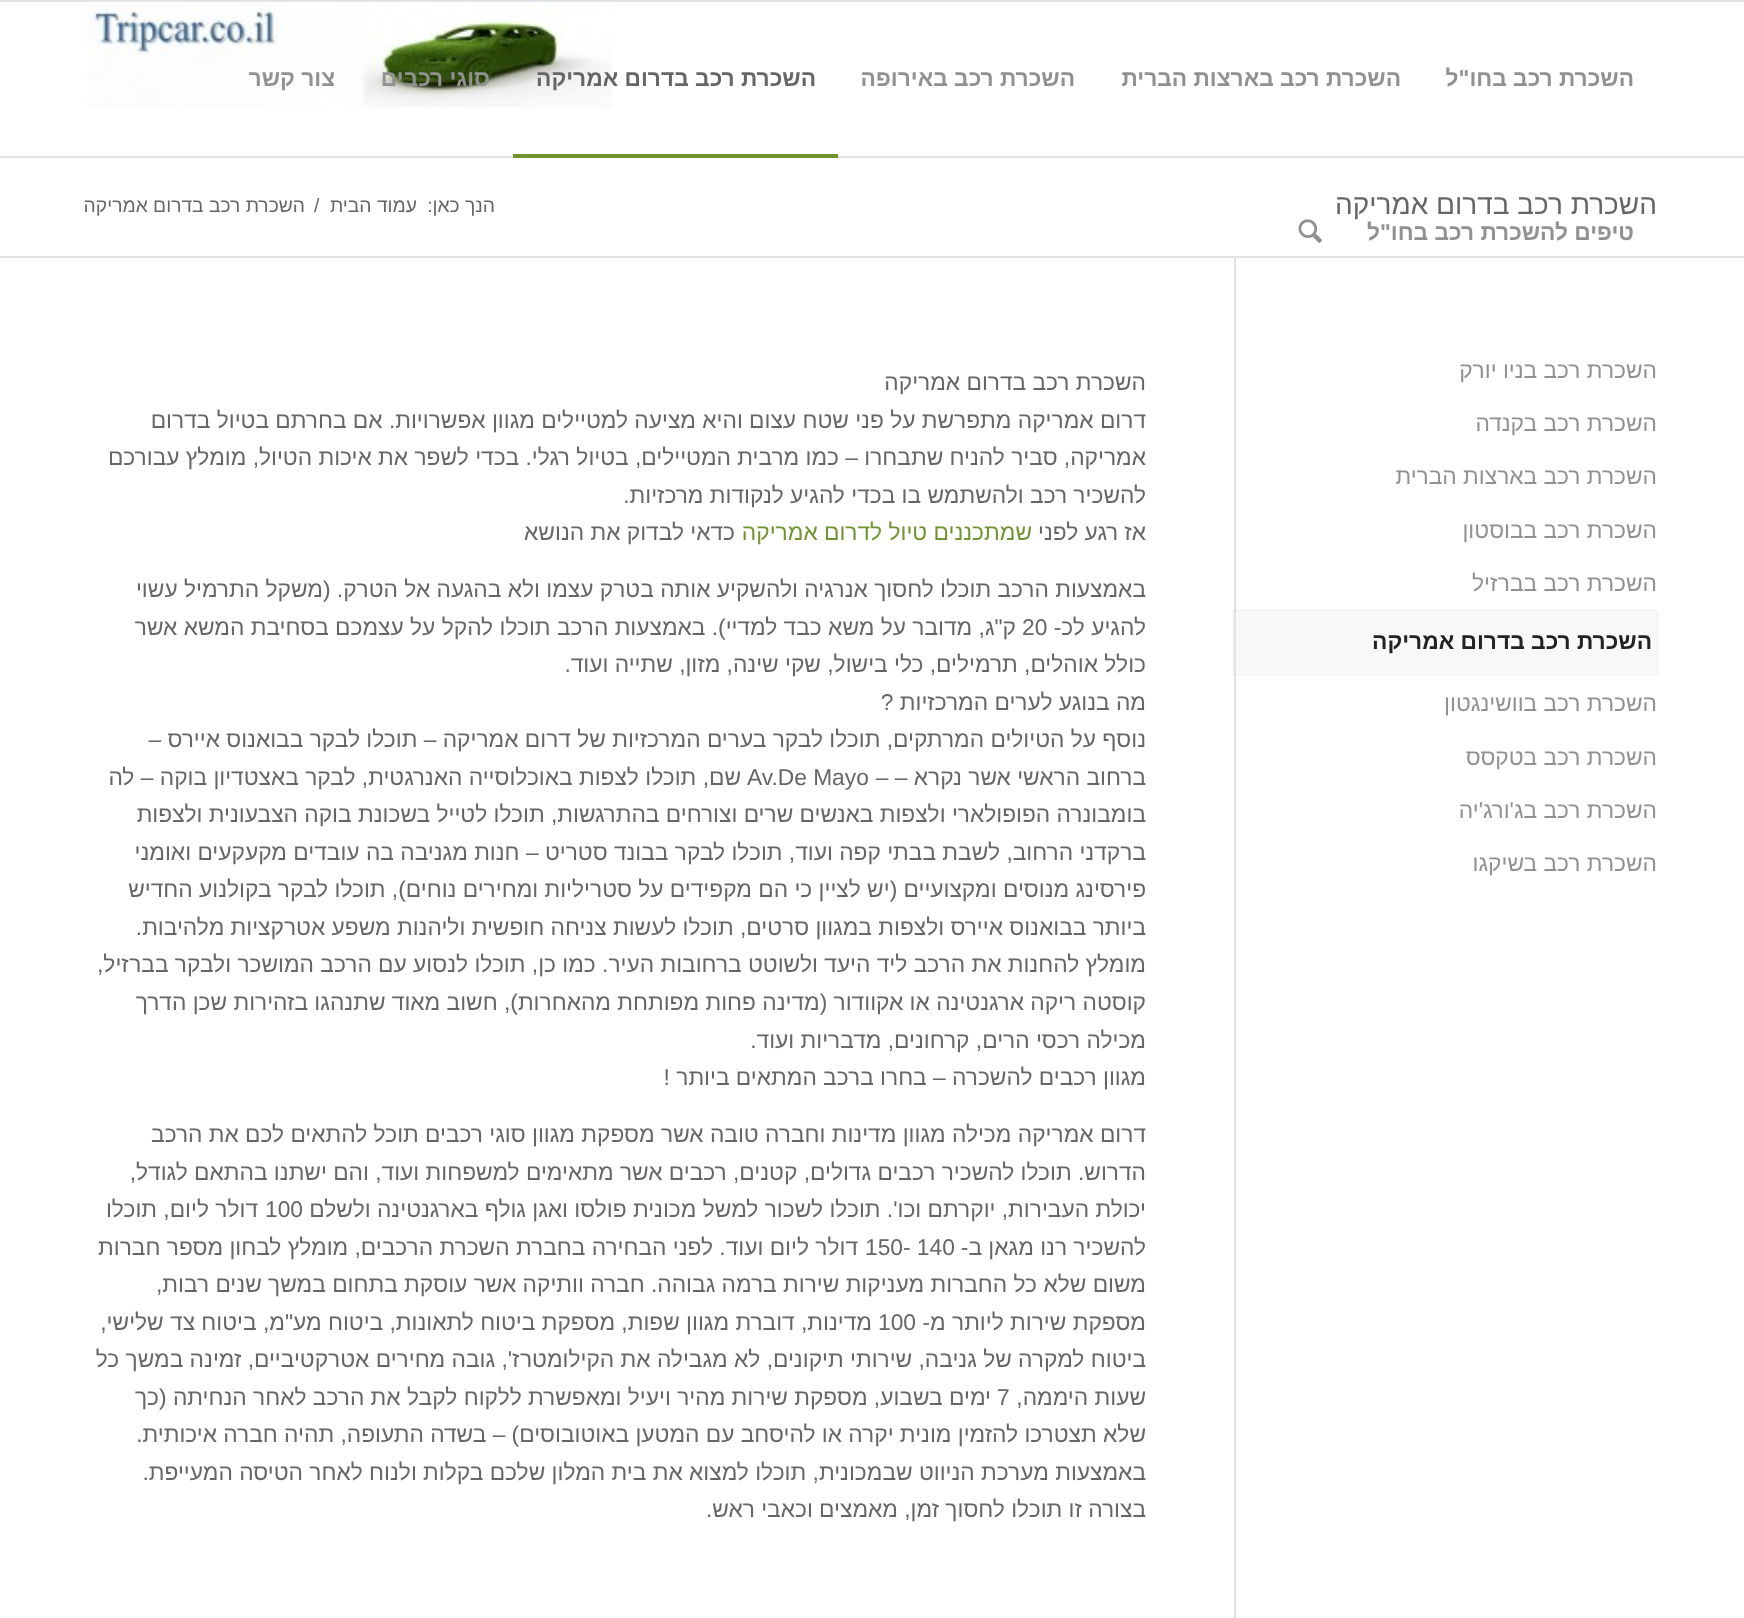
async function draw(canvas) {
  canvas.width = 1744;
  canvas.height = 1618;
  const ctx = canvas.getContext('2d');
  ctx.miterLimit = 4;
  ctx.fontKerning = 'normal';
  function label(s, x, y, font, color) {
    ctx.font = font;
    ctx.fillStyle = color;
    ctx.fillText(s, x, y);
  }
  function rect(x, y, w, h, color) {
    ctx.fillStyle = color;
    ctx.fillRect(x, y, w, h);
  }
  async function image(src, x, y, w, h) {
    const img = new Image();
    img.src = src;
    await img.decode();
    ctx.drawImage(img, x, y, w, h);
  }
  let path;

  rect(0, 0, 1744, 1618, '#fff');
  rect(0, 0, 1744, 2, '#e1e1e1');
  rect(0, 156, 1744, 2, '#e1e1e1');
  await image('assets/img1.png', 87, 1, 525, 107);
  ctx.direction = 'rtl';
  label('השכרת רכב בחו"ל', 1634, 86, 'bold 22.75px Liberation Sans', '#919191');
  label('השכרת רכב בארצות הברית', 1401, 86, 'bold 22.75px Liberation Sans', '#919191');
  label('השכרת רכב באירופה', 1075, 86, 'bold 22.75px Liberation Sans', '#919191');
  label('השכרת רכב בדרום אמריקה', 816, 86, 'bold 22.75px Liberation Sans', '#666');
  rect(513, 154, 325, 4, '#719430');
  label('סוגי רכבים', 490, 86, 'bold 22.75px Liberation Sans', '#919191');
  label('צור קשר', 335, 86, 'bold 22.75px Liberation Sans', '#919191');
  label('טיפים להשכרת רכב בחו"ל', 1634, 240, 'bold 22.75px Liberation Sans', '#919191');
  await image('assets/img2.png', 1298, 219, 24, 24);
  label('השכרת רכב בדרום אמריקה', 1657, 214, '28px Liberation Sans', '#666');
  label('הנך כאן:', 495, 212, '19.25px Liberation Sans', '#666');
  label('עמוד הבית', 417, 212, '19.25px Liberation Sans', '#666');
  ctx.direction = 'ltr';
  label('/', 314, 212, '19.25px Liberation Sans', '#666');
  ctx.direction = 'rtl';
  label('השכרת רכב בדרום אמריקה', 305, 212, '19.25px Liberation Sans', '#666');
  rect(0, 256, 1744, 2, '#e1e1e1');
  label('השכרת רכב בניו יורק', 1657, 378, '22.75px Liberation Sans', '#919191');
  label('השכרת רכב בקנדה', 1657, 431, '22.75px Liberation Sans', '#919191');
  label('השכרת רכב בארצות הברית', 1657, 484, '22.75px Liberation Sans', '#919191');
  label('השכרת רכב בבוסטון', 1657, 538, '22.75px Liberation Sans', '#919191');
  label('השכרת רכב בברזיל', 1657, 591, '22.75px Liberation Sans', '#919191');
  rect(1234, 257, 2, 1361, '#e1e1e1');
  ctx.save();
  path = new Path2D('M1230 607H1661V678H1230ZM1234 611H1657V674H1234Z');
  ctx.clip(path, 'evenodd');
  ctx.fillStyle = '#00000033';
  ctx.filter = 'blur(1px)';
  ctx.beginPath();
  ctx.rect(1234, 611, 423, 63);
  ctx.fill();
  ctx.filter = 'none';
  ctx.restore();
  rect(1236, 611, 421, 62, '#f8f8f8');
  label('השכרת רכב בדרום אמריקה', 1652, 649, 'bold 22.75px Liberation Sans', '#222');
  label('השכרת רכב בוושינגטון', 1657, 711, '22.75px Liberation Sans', '#919191');
  label('השכרת רכב בטקסס', 1657, 765, '22.75px Liberation Sans', '#919191');
  label('השכרת רכב בג\'ורג\'יה', 1657, 818, '22.75px Liberation Sans', '#919191');
  label('השכרת רכב בשיקגו', 1657, 871, '22.75px Liberation Sans', '#919191');
  label('השכרת רכב בדרום אמריקה', 1146, 390, '22.75px Liberation Sans', '#666');
  label('דרום אמריקה מתפרשת על פני שטח עצום והיא מציעה למטיילים מגוון אפשרויות. אם בחרתם בטיול בדרום', 1146, 428, '22.75px Liberation Sans', '#666');
  label('אמריקה, סביר להניח שתבחרו – כמו מרבית המטיילים, בטיול רגלי. בכדי לשפר את איכות הטיול, מומלץ עבורכם', 1146, 465, '22.75px Liberation Sans', '#666');
  label('להשכיר רכב ולהשתמש בו בכדי להגיע לנקודות מרכזיות.', 1146, 503, '22.75px Liberation Sans', '#666');
  label('אז רגע לפני', 1146, 540, '22.75px Liberation Sans', '#666');
  label('שמתכננים טיול לדרום אמריקה', 1032, 540, '22.75px Liberation Sans', '#719430');
  label('כדאי לבדוק את הנושא', 735, 540, '22.75px Liberation Sans', '#666');
  label('באמצעות הרכב תוכלו לחסוך אנרגיה ולהשקיע אותה בטרק עצמו ולא בהגעה אל הטרק. (משקל התרמיל עשוי', 1146, 597, '22.75px Liberation Sans', '#666');
  label('להגיע לכ-', 1146, 635, '22.75px Liberation Sans', '#666');
  ctx.direction = 'ltr';
  label('20', 1022, 635, '22.75px Liberation Sans', '#666');
  ctx.direction = 'rtl';
  label('ק"ג, מדובר על משא כבד למדיי). באמצעות הרכב תוכלו להקל על עצמכם בסחיבת המשא אשר', 1016, 635, '22.75px Liberation Sans', '#666');
  label('כולל אוהלים, תרמילים, כלי בישול, שקי שינה, מזון, שתייה ועוד.', 1146, 672, '22.75px Liberation Sans', '#666');
  label('מה בנוגע לערים המרכזיות ?', 1146, 710, '22.75px Liberation Sans', '#666');
  label('נוסף על הטיולים המרתקים, תוכלו לבקר בערים המרכזיות של דרום אמריקה – תוכלו לבקר בבואנוס איירס –', 1146, 747, '22.75px Liberation Sans', '#666');
  label('ברחוב הראשי אשר נקרא – –', 1146, 785, '22.75px Liberation Sans', '#666');
  ctx.direction = 'ltr';
  label('Av.De Mayo', 747, 785, '22.75px Liberation Sans', '#666');
  ctx.direction = 'rtl';
  label('שם, תוכלו לצפות באוכלוסייה האנרגטית, לבקר באצטדיון בוקה – לה', 741, 785, '22.75px Liberation Sans', '#666');
  label('בומבונרה הפופולארי ולצפות באנשים שרים וצורחים בהתרגשות, תוכלו לטייל בשכונת בוקה הצבעונית ולצפות', 1146, 822, '22.75px Liberation Sans', '#666');
  label('ברקדני הרחוב, לשבת בבתי קפה ועוד, תוכלו לבקר בבונד סטריט – חנות מגניבה בה עובדים מקעקעים ואומני', 1146, 860, '22.75px Liberation Sans', '#666');
  label('פירסינג מנוסים ומקצועיים (יש לציין כי הם מקפידים על סטריליות ומחירים נוחים), תוכלו לבקר בקולנוע החדיש', 1146, 897, '22.75px Liberation Sans', '#666');
  label('ביותר בבואנוס איירס ולצפות במגוון סרטים, תוכלו לעשות צניחה חופשית וליהנות משפע אטרקציות מלהיבות.', 1146, 935, '22.75px Liberation Sans', '#666');
  label('מומלץ להחנות את הרכב ליד היעד ולשוטט ברחובות העיר. כמו כן, תוכלו לנסוע עם הרכב המושכר ולבקר בברזיל,', 1146, 972, '22.75px Liberation Sans', '#666');
  label('קוסטה ריקה ארגנטינה או אקוודור (מדינה פחות מפותחת מהאחרות), חשוב מאוד שתנהגו בזהירות שכן הדרך', 1146, 1010, '22.75px Liberation Sans', '#666');
  label('מכילה רכסי הרים, קרחונים, מדבריות ועוד.', 1146, 1048, '22.75px Liberation Sans', '#666');
  label('מגוון רכבים להשכרה – בחרו ברכב המתאים ביותר !', 1146, 1085, '22.75px Liberation Sans', '#666');
  label('דרום אמריקה מכילה מגוון מדינות וחברה טובה אשר מספקת מגוון סוגי רכבים תוכל להתאים לכם את הרכב', 1146, 1142, '22.75px Liberation Sans', '#666');
  label('הדרוש. תוכלו להשכיר רכבים גדולים, קטנים, רכבים אשר מתאימים למשפחות ועוד, והם ישתנו בהתאם לגודל,', 1146, 1180, '22.75px Liberation Sans', '#666');
  label('יכולת העבירות, יוקרתם וכו\'. תוכלו לשכור למשל מכונית פולסו ואגן גולף בארגנטינה ולשלם', 1146, 1217, '22.75px Liberation Sans', '#666');
  ctx.direction = 'ltr';
  label('100', 265, 1217, '22.75px Liberation Sans', '#666');
  ctx.direction = 'rtl';
  label('דולר ליום, תוכלו', 258, 1217, '22.75px Liberation Sans', '#666');
  label('להשכיר רנו מגאן ב-', 1146, 1255, '22.75px Liberation Sans', '#666');
  ctx.direction = 'ltr';
  label('150- 140', 865, 1255, '22.75px Liberation Sans', '#666');
  ctx.direction = 'rtl';
  label('דולר ליום ועוד. לפני הבחירה בחברת השכרת הרכבים, מומלץ לבחון מספר חברות', 858, 1255, '22.75px Liberation Sans', '#666');
  label('משום שלא כל החברות מעניקות שירות ברמה גבוהה. חברה וותיקה אשר עוסקת בתחום במשך שנים רבות,', 1146, 1292, '22.75px Liberation Sans', '#666');
  label('מספקת שירות ליותר מ-', 1146, 1330, '22.75px Liberation Sans', '#666');
  ctx.direction = 'ltr';
  label('100', 878, 1330, '22.75px Liberation Sans', '#666');
  ctx.direction = 'rtl';
  label('מדינות, דוברת מגוון שפות, מספקת ביטוח לתאונות, ביטוח מע"מ, ביטוח צד שלישי,', 872, 1330, '22.75px Liberation Sans', '#666');
  label('ביטוח למקרה של גניבה, שירותי תיקונים, לא מגבילה את הקילומטרז\', גובה מחירים אטרקטיביים, זמינה במשך כל', 1146, 1367, '22.75px Liberation Sans', '#666');
  label('שעות היממה,', 1146, 1405, '22.75px Liberation Sans', '#666');
  ctx.direction = 'ltr';
  label('7', 997, 1405, '22.75px Liberation Sans', '#666');
  ctx.direction = 'rtl';
  label('ימים בשבוע, מספקת שירות מהיר ויעיל ומאפשרת ללקוח לקבל את הרכב לאחר הנחיתה (כך', 991, 1405, '22.75px Liberation Sans', '#666');
  label('שלא תצטרכו להזמין מונית יקרה או להיסחב עם המטען באוטובוסים) – בשדה התעופה, תהיה חברה איכותית.', 1146, 1442, '22.75px Liberation Sans', '#666');
  label('באמצעות מערכת הניווט שבמכונית, תוכלו למצוא את בית המלון שלכם בקלות ולנוח לאחר הטיסה המעייפת.', 1146, 1480, '22.75px Liberation Sans', '#666');
  label('בצורה זו תוכלו לחסוך זמן, מאמצים וכאבי ראש.', 1146, 1517, '22.75px Liberation Sans', '#666');
}

draw(document.querySelector('canvas'));
